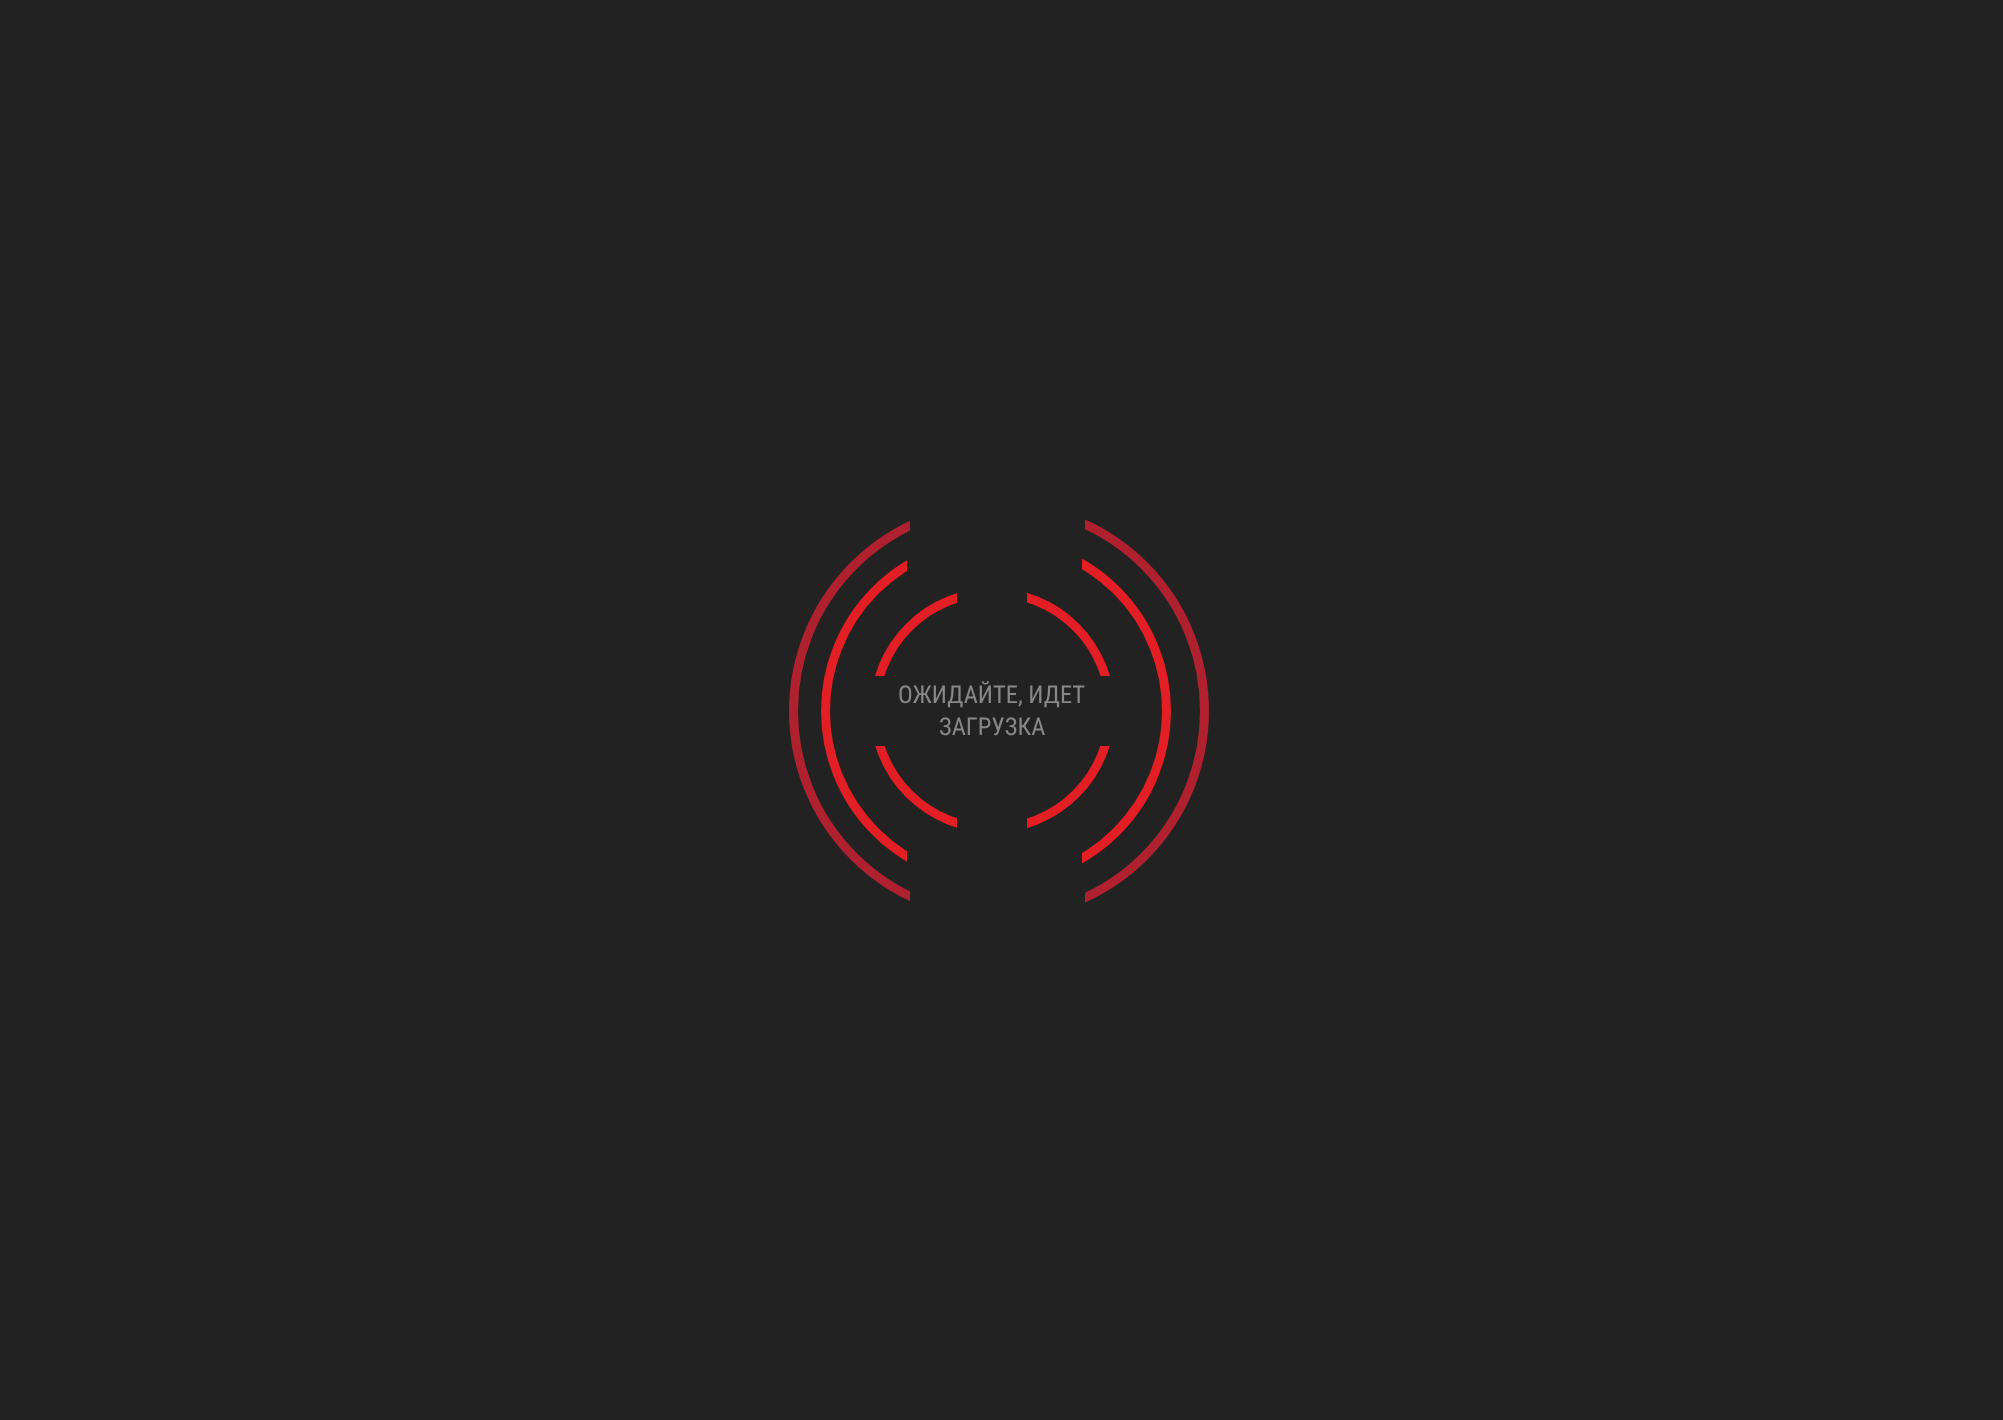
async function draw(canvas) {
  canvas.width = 2003;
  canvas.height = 1420;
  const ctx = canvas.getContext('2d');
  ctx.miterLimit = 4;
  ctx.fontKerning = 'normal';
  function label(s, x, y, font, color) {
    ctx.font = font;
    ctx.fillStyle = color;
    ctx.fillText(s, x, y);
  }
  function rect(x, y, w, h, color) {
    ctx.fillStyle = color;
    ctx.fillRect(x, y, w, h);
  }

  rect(0, 0, 2003, 1420, '#222');
  ctx.beginPath();
  ctx.arc(999, 711, 205.5, 0, 2 * Math.PI);
  ctx.strokeStyle = '#af212e';
  ctx.lineWidth = 9;
  ctx.stroke();
  rect(910, 501, 175, 420, '#222');
  ctx.beginPath();
  ctx.arc(996, 711, 170.5, 0, 2 * Math.PI);
  ctx.strokeStyle = '#e31e24';
  ctx.stroke();
  rect(907, 536, 175, 350, '#222');
  ctx.beginPath();
  ctx.arc(992.5, 710.5, 118, 0, 2 * Math.PI);
  ctx.stroke();
  rect(870, 676, 245, 70, '#222');
  rect(957, 588, 70, 245, '#222');
  label('ОЖИДАЙТЕ, ИДЕТ', 898, 703, '24.5px Roboto Condensed', '#888');
  label('ЗАГРУЗКА', 939, 735, '24.5px Roboto Condensed', '#888');
}

draw(document.querySelector('canvas'));
